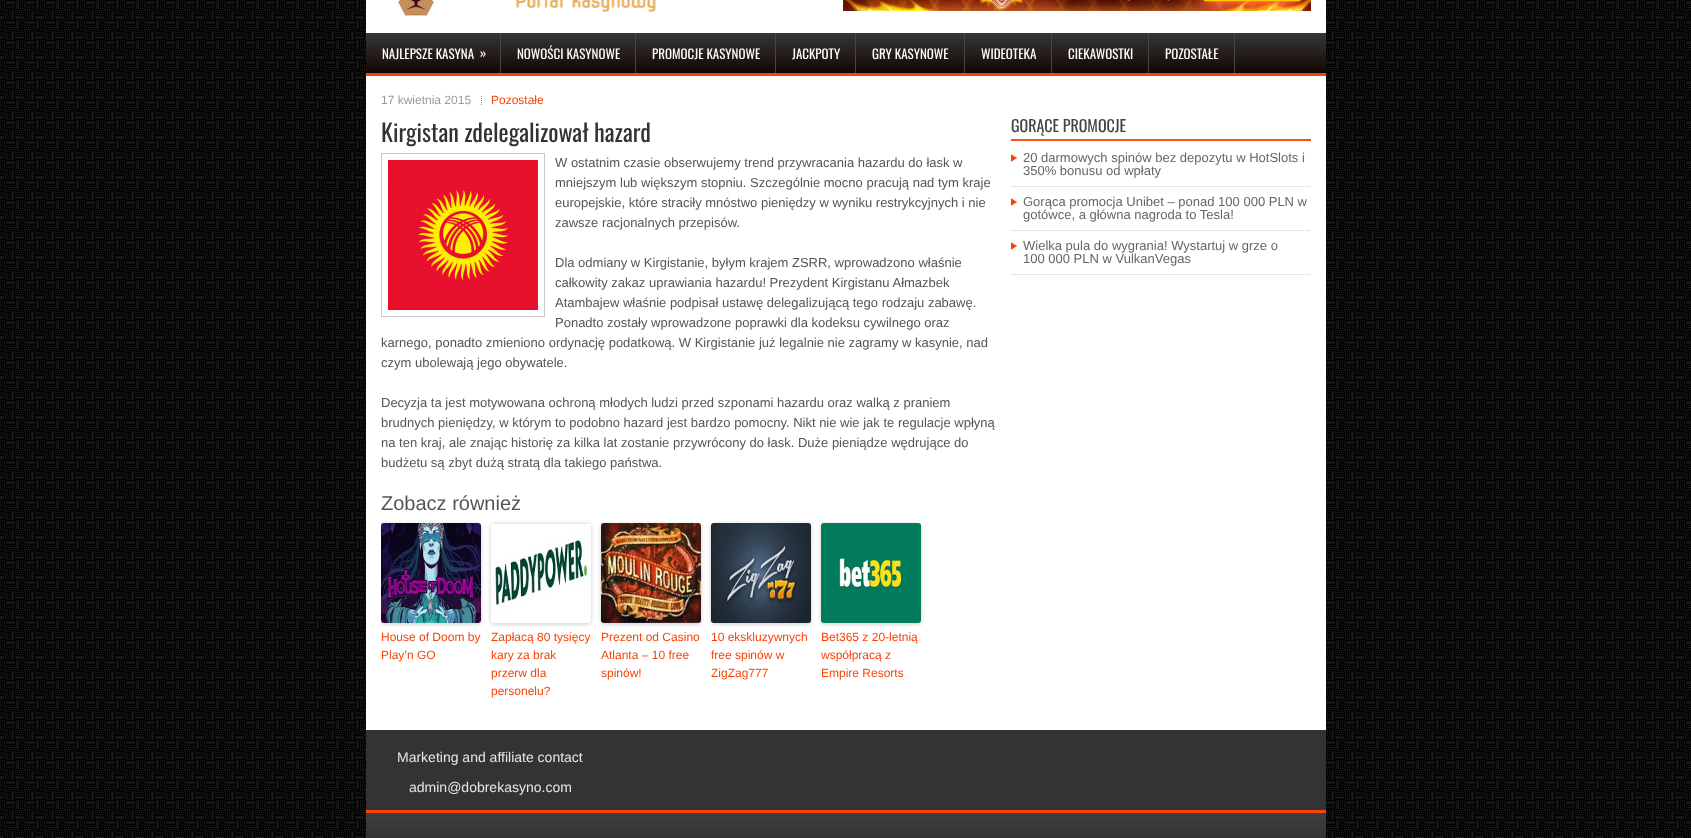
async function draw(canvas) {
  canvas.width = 1691;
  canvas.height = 838;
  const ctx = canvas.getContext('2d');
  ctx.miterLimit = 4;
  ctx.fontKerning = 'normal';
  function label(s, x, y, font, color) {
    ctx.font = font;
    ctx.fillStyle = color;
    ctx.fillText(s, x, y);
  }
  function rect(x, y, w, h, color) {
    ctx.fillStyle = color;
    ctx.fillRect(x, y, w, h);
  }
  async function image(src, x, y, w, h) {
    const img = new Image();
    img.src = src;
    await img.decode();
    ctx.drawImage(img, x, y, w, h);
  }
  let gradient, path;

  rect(0, 0, 1691, 838, '#fff');
  await image('assets/img1.png', 0, 0, 1691, 838);
  rect(366, 0, 960, 33, '#fff');
  await image('assets/img2.png', 398, 0, 258, 16);
  await image('assets/img3.png', 843, 0, 468, 11);
  gradient = ctx.createLinearGradient(846, 33, 846, 73);
  gradient.addColorStop(0, '#373737');
  gradient.addColorStop(1, '#130601');
  ctx.fillStyle = gradient;
  ctx.fillRect(366, 33, 960, 40);
  rect(366, 73, 960, 3, '#f94306');
  rect(500, 33, 1, 40, '#464646');
  label('NAJLEPSZE KASYNA', 382, 59, '13px Oswald', '#fff');
  label('»', 480, 58, '13px Oswald', '#fff');
  rect(635, 33, 1, 40, '#464646');
  label('NOWOŚCI KASYNOWE', 517, 59, '13px Oswald', '#fff');
  rect(775, 33, 1, 40, '#464646');
  label('PROMOCJE KASYNOWE', 652, 59, '13px Oswald', '#fff');
  rect(855, 33, 1, 40, '#464646');
  label('JACKPOTY', 792, 59, '13px Oswald', '#fff');
  rect(964, 33, 1, 40, '#464646');
  label('GRY KASYNOWE', 872, 59, '13px Oswald', '#fff');
  rect(1051, 33, 1, 40, '#464646');
  label('WIDEOTEKA', 981, 59, '13px Oswald', '#fff');
  rect(1148, 33, 1, 40, '#464646');
  label('CIEKAWOSTKI', 1068, 59, '13px Oswald', '#fff');
  rect(1234, 33, 1, 40, '#464646');
  label('POZOSTAŁE', 1165, 59, '13px Oswald', '#fff');
  rect(366, 76, 960, 654, '#fff');
  label('17 kwietnia 2015', 381, 104, '12px Liberation Sans', '#999');
  await image('assets/img4.png', 481, 96, 1, 9);
  label('Pozostałe', 491, 104, '12px Liberation Sans', '#f94306');
  label('Kirgistan zdelegalizował hazard', 381, 142, '24px Oswald', '#333');
  ctx.strokeStyle = '#cacaca';
  ctx.strokeRect(381.5, 153.5, 163, 163);
  await image('assets/img5.png', 388, 160, 150, 150);
  label('W ostatnim czasie obserwujemy trend przywracania hazardu do łask w', 555, 167, '13px Liberation Sans', '#555');
  label('mniejszym lub większym stopniu. Szczególnie mocno pracują nad tym kraje', 555, 187, '13px Liberation Sans', '#555');
  label('europejskie, które straciły mnóstwo pieniędzy w wyniku restrykcyjnych i nie', 555, 207, '13px Liberation Sans', '#555');
  label('zawsze racjonalnych przepisów.', 555, 227, '13px Liberation Sans', '#555');
  label('Dla odmiany w Kirgistanie, byłym krajem ZSRR, wprowadzono właśnie', 555, 267, '13px Liberation Sans', '#555');
  label('całkowity zakaz uprawiania hazardu! Prezydent Kirgistanu Ałmazbek', 555, 287, '13px Liberation Sans', '#555');
  label('Atambajew właśnie podpisał ustawę delegalizującą tego rodzaju zabawę.', 555, 307, '13px Liberation Sans', '#555');
  label('Ponadto zostały wprowadzone poprawki dla kodeksu cywilnego oraz', 555, 327, '13px Liberation Sans', '#555');
  label('karnego, ponadto zmieniono ordynację podatkową. W Kirgistanie już legalnie nie zagramy w kasynie, nad', 381, 347, '13px Liberation Sans', '#555');
  label('czym ubolewają jego obywatele.', 381, 367, '13px Liberation Sans', '#555');
  label('Decyzja ta jest motywowana ochroną młodych ludzi przed szponami hazardu oraz walką z praniem', 381, 407, '13px Liberation Sans', '#555');
  label('brudnych pieniędzy, w którym to podobno hazard jest bardzo pomocny. Nikt nie wie jak te regulacje wpłyną', 381, 427, '13px Liberation Sans', '#555');
  label('na ten kraj, ale znając historię za kilka lat zostanie przywrócony do łask. Duże pieniądze wędrujące do', 381, 447, '13px Liberation Sans', '#555');
  label('budżetu są zbyt dużą stratą dla takiego państwa.', 381, 467, '13px Liberation Sans', '#555');
  label('Zobacz również', 381, 510, '20px Liberation Sans', '#555');
  ctx.save();
  ctx.beginPath();
  ctx.rect(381, 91, 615, 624);
  ctx.clip();
  ctx.fillStyle = '#00000033';
  ctx.filter = 'blur(2px)';
  ctx.beginPath();
  ctx.roundRect(381, 524, 100, 100, 3);
  ctx.fill();
  ctx.filter = 'none';
  ctx.restore();
  await image('assets/img6.png', 381, 523, 100, 100);
  label('House of Doom by', 381, 641, '12px Liberation Sans', '#f94306');
  label('Play’n GO', 381, 659, '12px Liberation Sans', '#f94306');
  ctx.fillStyle = '#00000033';
  ctx.filter = 'blur(2px)';
  ctx.beginPath();
  ctx.roundRect(491, 524, 100, 100, 3);
  ctx.fill();
  ctx.filter = 'none';
  await image('assets/img7.png', 491, 524, 100, 99);
  label('Zapłacą 80 tysięcy', 491, 641, '12px Liberation Sans', '#f94306');
  label('kary za brak', 491, 659, '12px Liberation Sans', '#f94306');
  label('przerw dla', 491, 677, '12px Liberation Sans', '#f94306');
  label('personelu?', 491, 695, '12px Liberation Sans', '#f94306');
  ctx.fillStyle = '#00000033';
  ctx.filter = 'blur(2px)';
  ctx.beginPath();
  ctx.roundRect(601, 524, 100, 100, 3);
  ctx.fill();
  ctx.filter = 'none';
  await image('assets/img8.png', 601, 523, 100, 100);
  label('Prezent od Casino', 601, 641, '12px Liberation Sans', '#f94306');
  label('Atlanta – 10 free', 601, 659, '12px Liberation Sans', '#f94306');
  label('spinów!', 601, 677, '12px Liberation Sans', '#f94306');
  ctx.fillStyle = '#00000033';
  ctx.filter = 'blur(2px)';
  ctx.beginPath();
  ctx.roundRect(711, 524, 100, 100, 3);
  ctx.fill();
  ctx.filter = 'none';
  await image('assets/img9.png', 711, 523, 100, 100);
  label('10 ekskluzywnych', 711, 641, '12px Liberation Sans', '#f94306');
  label('free spinów w', 711, 659, '12px Liberation Sans', '#f94306');
  label('ZigZag777', 711, 677, '12px Liberation Sans', '#f94306');
  ctx.fillStyle = '#00000033';
  ctx.filter = 'blur(2px)';
  ctx.beginPath();
  ctx.roundRect(821, 524, 100, 100, 3);
  ctx.fill();
  ctx.filter = 'none';
  await image('assets/img10.png', 821, 523, 100, 100);
  label('Bet365 z 20-letnią', 821, 641, '12px Liberation Sans', '#f94306');
  label('współpracą z', 821, 659, '12px Liberation Sans', '#f94306');
  label('Empire Resorts', 821, 677, '12px Liberation Sans', '#f94306');
  rect(1011, 139, 300, 2, '#f95018');
  label('GORĄCE PROMOCJE', 1011, 132, '16px Oswald', '#414445');
  await image('assets/img11.png', 1011, 154, 6, 8);
  path = new Path2D('M1011 186.5H1311');
  ctx.strokeStyle = '#ccc';
  ctx.setLineDash([1, 1]);
  ctx.stroke(path);
  label('20 darmowych spinów bez depozytu w HotSlots i', 1023, 162, '13px Liberation Sans', '#666');
  label('350% bonusu od wpłaty', 1023, 175, '13px Liberation Sans', '#666');
  await image('assets/img11.png', 1011, 198, 6, 8);
  path = new Path2D('M1011 230.5H1311');
  ctx.stroke(path);
  label('Gorąca promocja Unibet – ponad 100 000 PLN w', 1023, 206, '13px Liberation Sans', '#666');
  label('gotówce, a główna nagroda to Tesla!', 1023, 219, '13px Liberation Sans', '#666');
  await image('assets/img11.png', 1011, 242, 6, 8);
  path = new Path2D('M1011 274.5H1311');
  ctx.stroke(path);
  label('Wielka pula do wygrania! Wystartuj w grze o', 1023, 250, '13px Liberation Sans', '#666');
  label('100 000 PLN w VulkanVegas', 1023, 263, '13px Liberation Sans', '#666');
  rect(366, 730, 960, 80, '#333');
  label('Marketing and affiliate contact', 397, 762, '14px Liberation Sans', '#e8e7e7');
  label('admin@dobrekasyno.com', 409, 792, '14px Liberation Sans', '#e8e7e7');
  gradient = ctx.createLinearGradient(846, 813, 846, 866);
  gradient.addColorStop(0, '#3f3f3f');
  gradient.addColorStop(1, '#252525');
  ctx.fillStyle = gradient;
  ctx.fillRect(366, 813, 960, 25);
  rect(366, 810, 960, 3, '#f94306');
}

draw(document.querySelector('canvas'));
